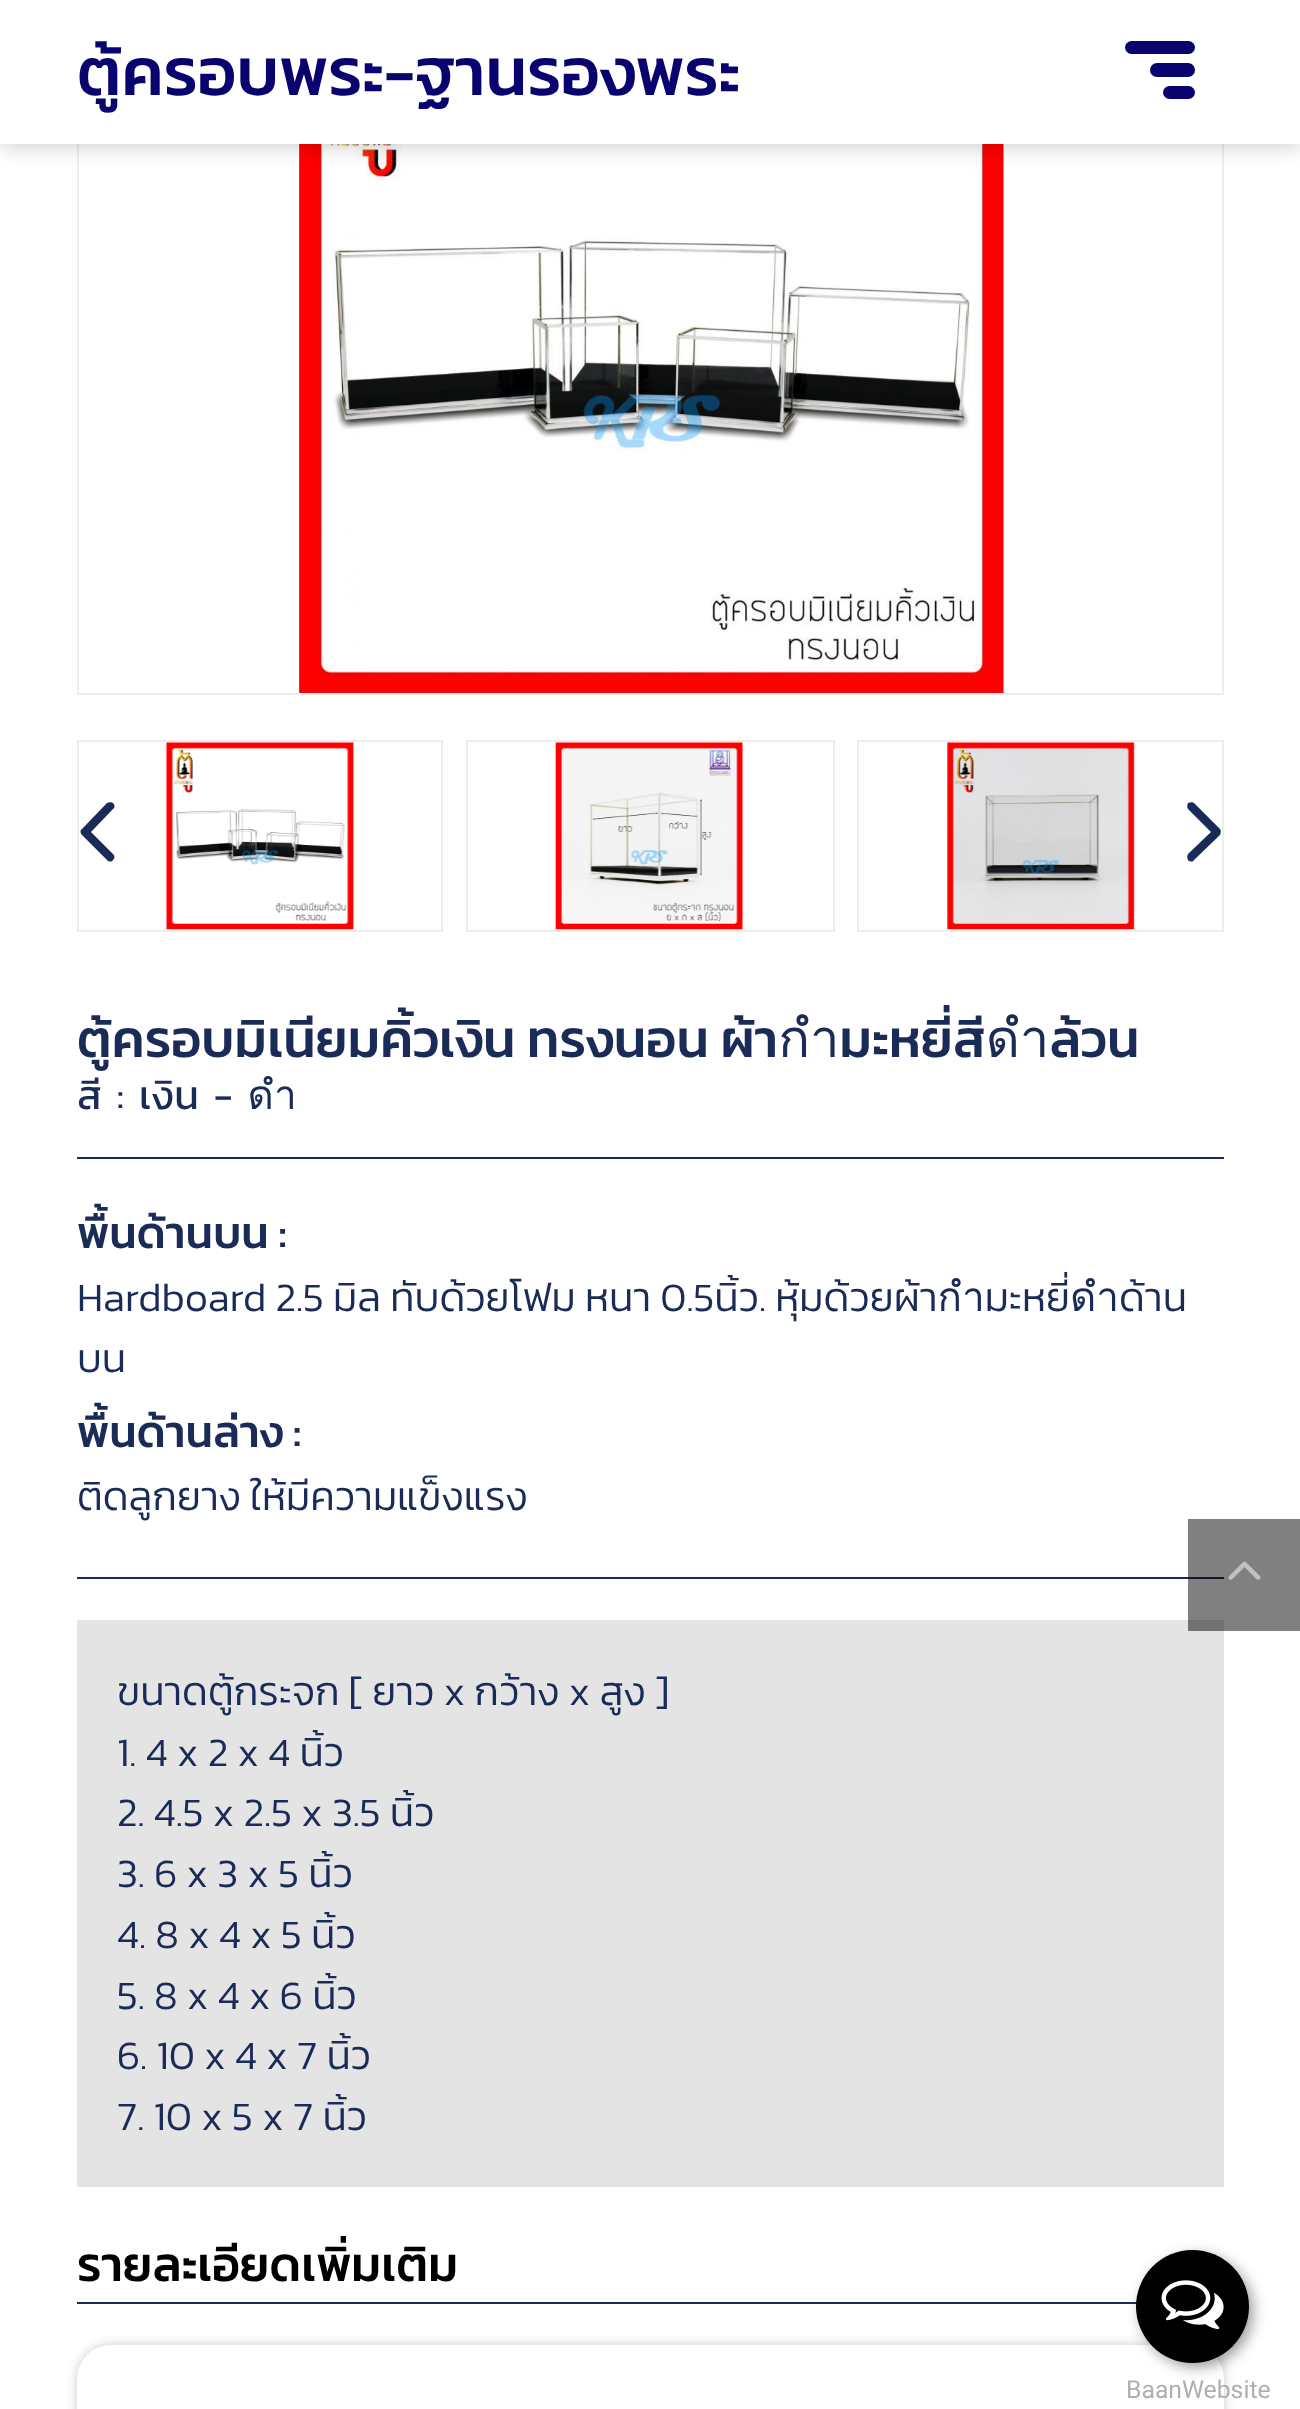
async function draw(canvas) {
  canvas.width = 1300;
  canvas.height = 2409;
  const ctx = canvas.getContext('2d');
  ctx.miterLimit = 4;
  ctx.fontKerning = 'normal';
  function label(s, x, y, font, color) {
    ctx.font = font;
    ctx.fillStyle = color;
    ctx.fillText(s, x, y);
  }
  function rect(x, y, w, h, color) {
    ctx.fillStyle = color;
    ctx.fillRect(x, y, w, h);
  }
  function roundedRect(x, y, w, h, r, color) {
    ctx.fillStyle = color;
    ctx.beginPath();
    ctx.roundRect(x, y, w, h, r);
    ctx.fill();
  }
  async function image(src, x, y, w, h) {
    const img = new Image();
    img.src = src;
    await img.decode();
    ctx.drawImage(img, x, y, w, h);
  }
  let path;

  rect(0, 0, 1300, 2409, '#fff');
  rect(1188, 1519, 112, 112, '#808080');
  ctx.strokeStyle = '#eee';
  ctx.lineWidth = 2;
  ctx.strokeRect(78, -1, 1145, 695);
  await image('assets/img1.png', 299, 144, 705, 549);
  ctx.fillStyle = '#00000033';
  ctx.filter = 'blur(11px)';
  ctx.beginPath();
  ctx.rect(0, 2, 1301, 144);
  ctx.fill();
  ctx.filter = 'none';
  rect(0, 0, 1300, 144, '#fff');
  label('ตู้ครอบพระ-ฐานรองพระ', 77, 95, '500 67.5px Kanit', '#08036e');
  roundedRect(1125, 41, 70, 13, 6.5, '#08036e');
  roundedRect(1150, 63, 45, 14, 7, '#08036e');
  roundedRect(1163, 86, 32, 13, 6.5, '#08036e');
  ctx.strokeRect(78, 741, 364, 190);
  await image('assets/img2.png', 166, 742, 188, 188);
  ctx.strokeRect(467, 741, 367, 190);
  await image('assets/img3.png', 555, 742, 188, 188);
  ctx.strokeRect(858, 741, 365, 190);
  await image('assets/img4.png', 947, 742, 188, 188);
  ctx.fillStyle = '#1b2b58';
  path = new Path2D('M82 829C80 830 80 833 82 835L107 860C109 862 112 862 113 860C115 858 115 856 113 854L91 832L113 809C115 808 115 805 113 803C112 802 109 802 107 803Z');
  ctx.fill(path);
  path = new Path2D('M1220 829C1221 830 1221 833 1220 835L1194 860C1193 862 1190 862 1188 860C1187 858 1187 856 1188 854L1211 832L1188 809C1187 808 1187 805 1188 803C1190 802 1193 802 1194 803Z');
  ctx.fill(path);
  label('ตู้ครอบมิเนียมคิ้วเงิน ทรงนอน ผ้ากำมะหยี่สีดำล้วน', 77, 1057, '500 52.6px Kanit', '#1b2b58');
  label('สี : เงิน - ดำ', 77, 1109, '40.5px Kanit', '#1b2b58');
  rect(77, 1157, 1147, 2, '#1b2b58');
  label('พื้นด้านบน :', 77, 1248, '500 44.5px Kanit', '#1b2b58');
  label('Hardboard 2.5 มิล ทับด้วยโฟม หนา 0.5นิ้ว. หุ้มด้วยผ้ากำมะหยี่ดำด้าน', 77, 1311, '300 40.5px Kanit', '#1b2b58');
  label('บน', 77, 1372, '300 40.5px Kanit', '#1b2b58');
  label('พื้นด้านล่าง :', 77, 1447, '500 44.5px Kanit', '#1b2b58');
  label('ติดลูกยาง ให้มีความแข็งแรง', 77, 1510, '300 40.5px Kanit', '#1b2b58');
  rect(77, 1577, 1111, 2, '#1b2b58');
  rect(1188, 1577, 36, 2, '#0e162c');
  rect(77, 1620, 1147, 567, '#e4e4e4');
  rect(1188, 1620, 36, 11, '#727272');
  label('ขนาดตู้กระจก [ ยาว x กว้าง x สูง ]', 117, 1705, '300 40.5px Kanit', '#1b2b58');
  label('1. 4 x 2 x 4 นิ้ว', 117, 1766, '300 40.5px Kanit', '#1b2b58');
  label('2. 4.5 x 2.5 x 3.5 นิ้ว', 117, 1826, '300 40.5px Kanit', '#1b2b58');
  label('3. 6 x 3 x 5 นิ้ว', 117, 1887, '300 40.5px Kanit', '#1b2b58');
  label('4. 8 x 4 x 5 นิ้ว', 117, 1948, '300 40.5px Kanit', '#1b2b58');
  label('5. 8 x 4 x 6 นิ้ว', 117, 2009, '300 40.5px Kanit', '#1b2b58');
  label('6. 10 x 4 x 7 นิ้ว', 117, 2069, '300 40.5px Kanit', '#1b2b58');
  label('7. 10 x 5 x 7 นิ้ว', 117, 2130, '300 40.5px Kanit', '#1b2b58');
  rect(77, 2302, 1060, 2, '#1b2b58');
  label('รายละเอียดเพิ่มเติม', 77, 2281, '500 48.5px Kanit', '#000');
  ctx.fillStyle = '#00000033';
  ctx.filter = 'blur(5.5px)';
  ctx.beginPath();
  ctx.roundRect(77, 2345, 1147, 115, 34);
  ctx.fill();
  ctx.filter = 'none';
  roundedRect(77, 2345, 1147, 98, 34, '#fff');
  await image('assets/img5.png', 1228, 1561, 33, 19);
  ctx.fillStyle = '#00000066';
  ctx.filter = 'blur(7px)';
  ctx.beginPath();
  ctx.roundRect(1141, 2255, 112, 112, 56);
  ctx.fill();
  ctx.filter = 'none';
  ctx.fillStyle = '#000';
  ctx.beginPath();
  ctx.arc(1192.5, 2306.5, 56.5, 0, 2 * Math.PI);
  ctx.fill();
  await image('assets/img6.png', 1161, 2280, 63, 50);
  label('BaanWebsite', 1126, 2398, '24.75px Roboto', '#afafaf');
}

draw(document.querySelector('canvas'));
